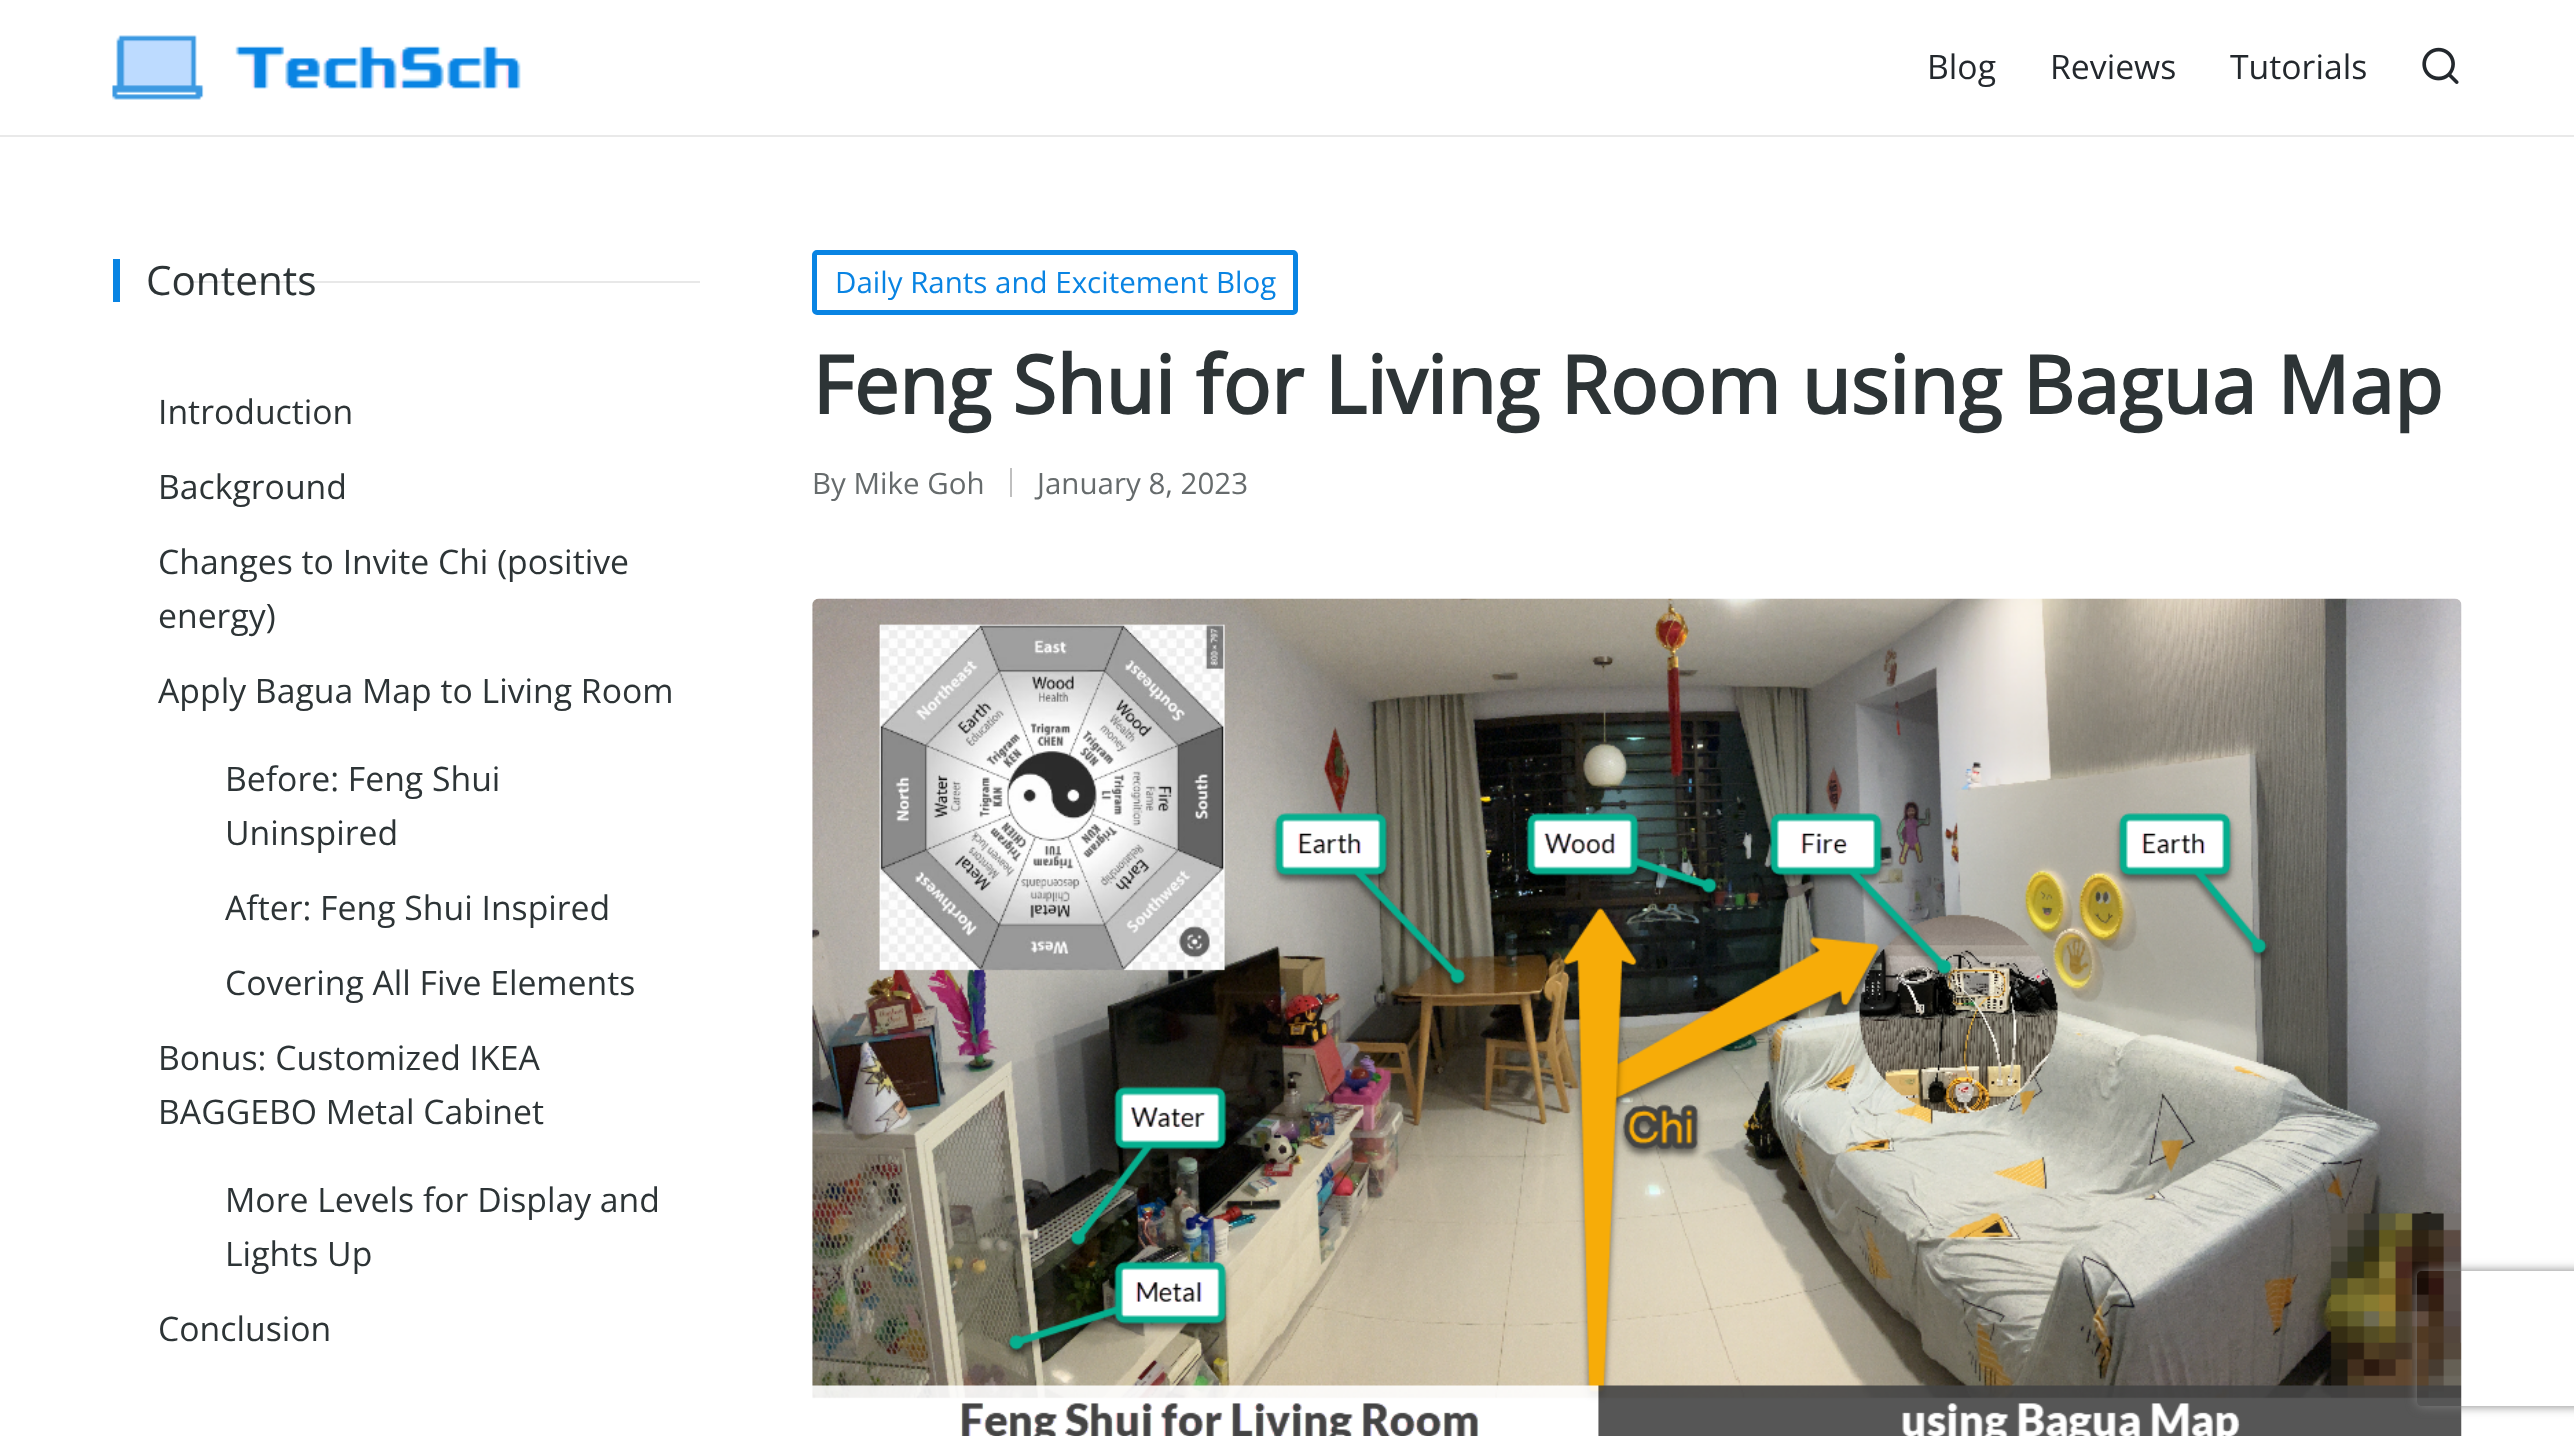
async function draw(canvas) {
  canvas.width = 2574;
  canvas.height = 1436;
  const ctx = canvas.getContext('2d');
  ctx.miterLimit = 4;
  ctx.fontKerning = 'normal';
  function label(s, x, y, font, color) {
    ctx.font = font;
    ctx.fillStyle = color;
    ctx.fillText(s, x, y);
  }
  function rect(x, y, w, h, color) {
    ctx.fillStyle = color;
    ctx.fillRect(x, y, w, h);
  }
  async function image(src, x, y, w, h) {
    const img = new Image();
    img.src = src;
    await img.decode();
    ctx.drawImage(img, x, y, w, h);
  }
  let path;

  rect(0, 0, 2574, 1436, '#fff');
  rect(0, 135, 2574, 2, '#e9e9e9');
  await image('assets/img1.png', 112, 35, 409, 65);
  label('Blog', 1927, 79, '33.75px Open Sans', '#23282d');
  label('Reviews', 2050, 79, '33.75px Open Sans', '#23282d');
  label('Tutorials', 2230, 79, '33.75px Open Sans', '#23282d');
  await image('assets/img2.png', 2422, 47, 37, 37);
  rect(113, 259, 7, 43, '#0984e3');
  label('Contents', 146, 295, '40.5px Open Sans', '#2d3436');
  rect(189, 281, 511, 2, '#00000017');
  label('Introduction', 158, 424, '33.75px Open Sans', '#2d3436');
  label('Background', 158, 499, '33.75px Open Sans', '#2d3436');
  label('Changes to Invite Chi (positive', 158, 574, '33.75px Open Sans', '#2d3436');
  label('energy)', 158, 628, '33.75px Open Sans', '#2d3436');
  label('Apply Bagua Map to Living Room', 158, 703, '33.75px Open Sans', '#2d3436');
  label('Before: Feng Shui', 225, 791, '33.75px Open Sans', '#2d3436');
  label('Uninspired', 225, 845, '33.75px Open Sans', '#2d3436');
  label('After: Feng Shui Inspired', 225, 920, '33.75px Open Sans', '#2d3436');
  label('Covering All Five Elements', 225, 995, '33.75px Open Sans', '#2d3436');
  label('Bonus: Customized IKEA', 158, 1070, '33.75px Open Sans', '#2d3436');
  label('BAGGEBO Metal Cabinet', 158, 1124, '33.75px Open Sans', '#2d3436');
  label('More Levels for Display and', 225, 1212, '33.75px Open Sans', '#2d3436');
  label('Lights Up', 225, 1266, '33.75px Open Sans', '#2d3436');
  label('Conclusion', 158, 1341, '33.75px Open Sans', '#2d3436');
  ctx.beginPath();
  ctx.roundRect(814.5, 252.5, 481, 60, 2.5);
  ctx.strokeStyle = '#0984e3';
  ctx.lineWidth = 5;
  ctx.stroke();
  label('Daily Rants and Excitement Blog', 835, 293, '29.5px Open Sans', '#0984e3');
  label('Feng Shui for Living Room using Bagua Map', 812, 414, 'bold 80.2px Open Sans', '#2d3436');
  label('By Mike Goh', 812, 494, '29.5px Open Sans', '#666b6c');
  rect(1010, 468, 2, 29, '#bfbfbf');
  label('January 8, 2023', 1037, 494, '29.5px Open Sans', '#666b6c');
  await image('assets/img3.png', 812, 598, 1650, 838);
  ctx.save();
  path = new Path2D('M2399 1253H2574V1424H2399ZM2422 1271H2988C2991 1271 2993 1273 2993 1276V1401C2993 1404 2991 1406 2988 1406H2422C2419 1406 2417 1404 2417 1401V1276C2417 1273 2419 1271 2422 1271Z');
  ctx.clip(path, 'evenodd');
  ctx.fillStyle = '#808080';
  ctx.filter = 'blur(5.5px)';
  ctx.beginPath();
  ctx.roundRect(2417, 1271, 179, 135, 5);
  ctx.fill();
  ctx.filter = 'none';
  ctx.restore();
}

draw(document.querySelector('canvas'));
